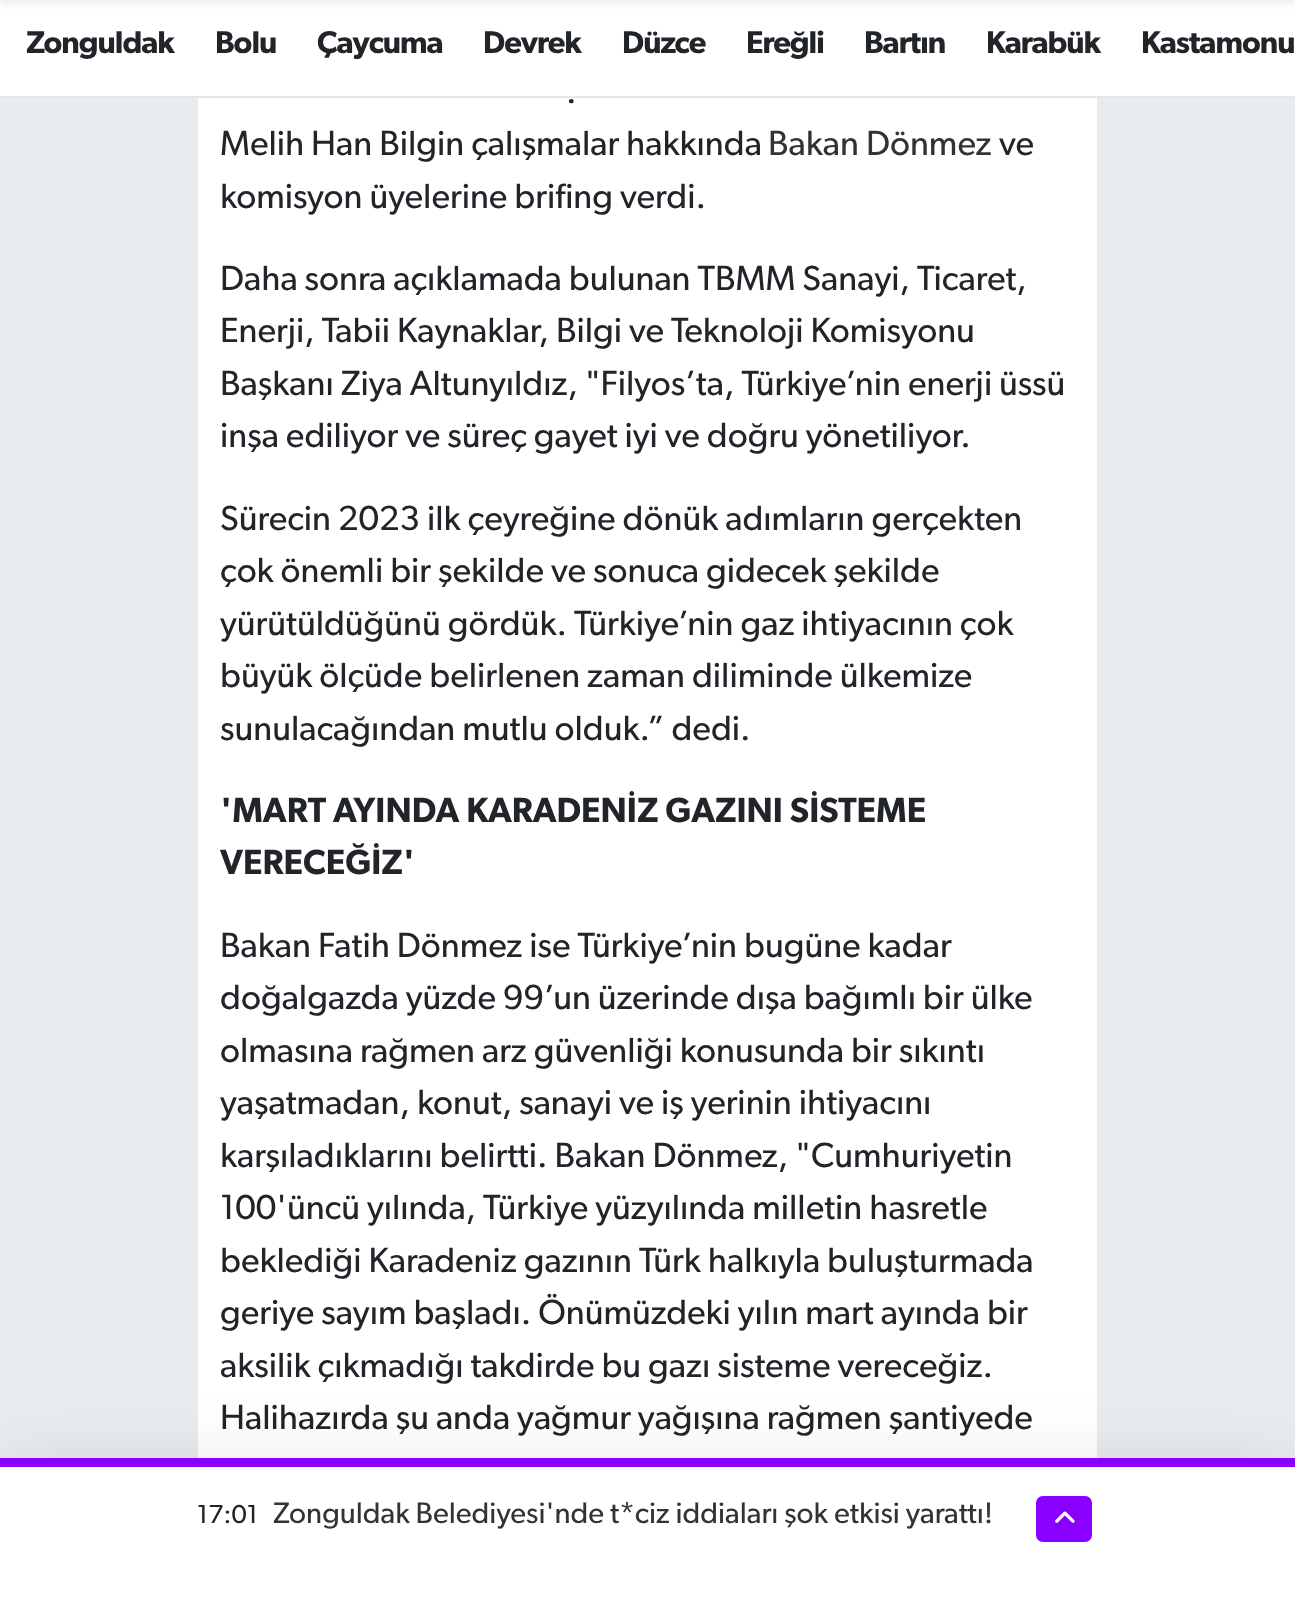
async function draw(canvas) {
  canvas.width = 1295;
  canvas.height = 1597;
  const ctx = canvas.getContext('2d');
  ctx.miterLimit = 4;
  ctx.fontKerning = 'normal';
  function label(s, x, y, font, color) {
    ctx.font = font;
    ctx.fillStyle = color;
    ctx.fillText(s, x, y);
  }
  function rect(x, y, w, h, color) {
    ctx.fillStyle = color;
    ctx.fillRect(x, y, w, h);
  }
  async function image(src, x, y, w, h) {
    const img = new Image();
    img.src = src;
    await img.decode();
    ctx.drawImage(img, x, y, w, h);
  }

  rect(0, 0, 1295, 1597, '#e9ecef');
  rect(0, 0, 1295, 96, '#fff');
  ctx.fillStyle = '#00000012';
  ctx.filter = 'blur(3.5px)';
  ctx.beginPath();
  ctx.rect(0, -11, 1295, 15);
  ctx.fill();
  ctx.filter = 'none';
  rect(0, 96, 1295, 2, '#e6e6e6');
  ctx.letterSpacing = '-1px';
  label('Zonguldak', 26, 53, '600 31.5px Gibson', '#212529');
  label('Bolu', 215, 53, '600 31.5px Gibson', '#212529');
  label('Çaycuma', 317, 53, '600 31.5px Gibson', '#212529');
  label('Devrek', 483, 53, '600 31.5px Gibson', '#212529');
  label('Düzce', 622, 53, '600 31.5px Gibson', '#212529');
  label('Ereğli', 746, 53, '600 31.5px Gibson', '#212529');
  label('Bartın', 864, 53, '600 31.5px Gibson', '#212529');
  label('Karabük', 986, 53, '600 31.5px Gibson', '#212529');
  label('Kastamonu', 1141, 53, '600 31.5px Gibson', '#212529');
  rect(198, 98, 899, 1360, '#fff');
  ctx.letterSpacing = '0px';
  label('.', 566, 103, '35px Gibson', '#212529');
  label('Melih Han Bilgin çalışmalar hakkında', 220, 155, '35px Gibson', '#212529');
  label('Bakan Dönmez', 768, 155, '35px Gibson', '#333');
  label('ve', 999, 155, '35px Gibson', '#212529');
  label('komisyon üyelerine brifing verdi.', 220, 208, '35px Gibson', '#212529');
  label('Daha sonra açıklamada bulunan TBMM Sanayi, Ticaret,', 220, 290, '35px Gibson', '#212529');
  label('Enerji, Tabii Kaynaklar, Bilgi ve Teknoloji Komisyonu', 220, 342, '35px Gibson', '#212529');
  label('Başkanı Ziya Altunyıldız, "Filyos’ta, Türkiye’nin enerji üssü', 220, 395, '35px Gibson', '#212529');
  label('inşa ediliyor ve süreç gayet iyi ve doğru yönetiliyor.', 220, 447, '35px Gibson', '#212529');
  label('Sürecin 2023 ilk çeyreğine dönük adımların gerçekten', 220, 530, '35px Gibson', '#212529');
  label('çok önemli bir şekilde ve sonuca gidecek şekilde', 220, 582, '35px Gibson', '#212529');
  label('yürütüldüğünü gördük. Türkiye’nin gaz ihtiyacının çok', 220, 635, '35px Gibson', '#212529');
  label('büyük ölçüde belirlenen zaman diliminde ülkemize', 220, 687, '35px Gibson', '#212529');
  label('sunulacağından mutlu olduk.” dedi.', 220, 740, '35px Gibson', '#212529');
  label('\'MART AYINDA KARADENİZ GAZINI SİSTEME', 220, 822, '600 35px Gibson', '#212529');
  label('VERECEĞİZ\'', 220, 874, '600 35px Gibson', '#212529');
  label('Bakan Fatih Dönmez ise Türkiye’nin bugüne kadar', 220, 957, '35px Gibson', '#212529');
  label('doğalgazda yüzde 99’un üzerinde dışa bağımlı bir ülke', 220, 1009, '35px Gibson', '#212529');
  label('olmasına rağmen arz güvenliği konusunda bir sıkıntı', 220, 1062, '35px Gibson', '#212529');
  label('yaşatmadan, konut, sanayi ve iş yerinin ihtiyacını', 220, 1114, '35px Gibson', '#212529');
  label('karşıladıklarını belirtti. Bakan Dönmez, "Cumhuriyetin', 220, 1167, '35px Gibson', '#212529');
  label('100\'üncü yılında, Türkiye yüzyılında milletin hasretle', 220, 1219, '35px Gibson', '#212529');
  label('beklediği Karadeniz gazının Türk halkıyla buluşturmada', 220, 1272, '35px Gibson', '#212529');
  label('geriye sayım başladı. Önümüzdeki yılın mart ayında bir', 220, 1324, '35px Gibson', '#212529');
  label('aksilik çıkmadığı takdirde bu gazı sisteme vereceğiz.', 220, 1377, '35px Gibson', '#212529');
  label('Halihazırda şu anda yağmur yağışına rağmen şantiyede', 220, 1429, '35px Gibson', '#212529');
  ctx.fillStyle = '#0000002e';
  ctx.filter = 'blur(44.5px)';
  ctx.beginPath();
  ctx.rect(0, 1488, 1295, 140);
  ctx.fill();
  ctx.filter = 'none';
  rect(0, 1467, 1295, 130, '#fff');
  rect(0, 1458, 1295, 9, '#8900ff');
  label('17:01', 197, 1523, '26px Gibson', '#212529');
  label('Zonguldak Belediyesi\'nde t*ciz iddiaları şok etkisi yarattı!', 273, 1523, '29.75px Gibson', '#333');
  ctx.fillStyle = '#8900ff';
  ctx.beginPath();
  ctx.roundRect(1037, 1497, 54, 44, 6);
  ctx.fill();
  ctx.strokeStyle = '#8900ff';
  ctx.lineWidth = 2;
  ctx.stroke();
  await image('assets/img1.png', 1055, 1511, 20, 12);
}

draw(document.querySelector('canvas'));
